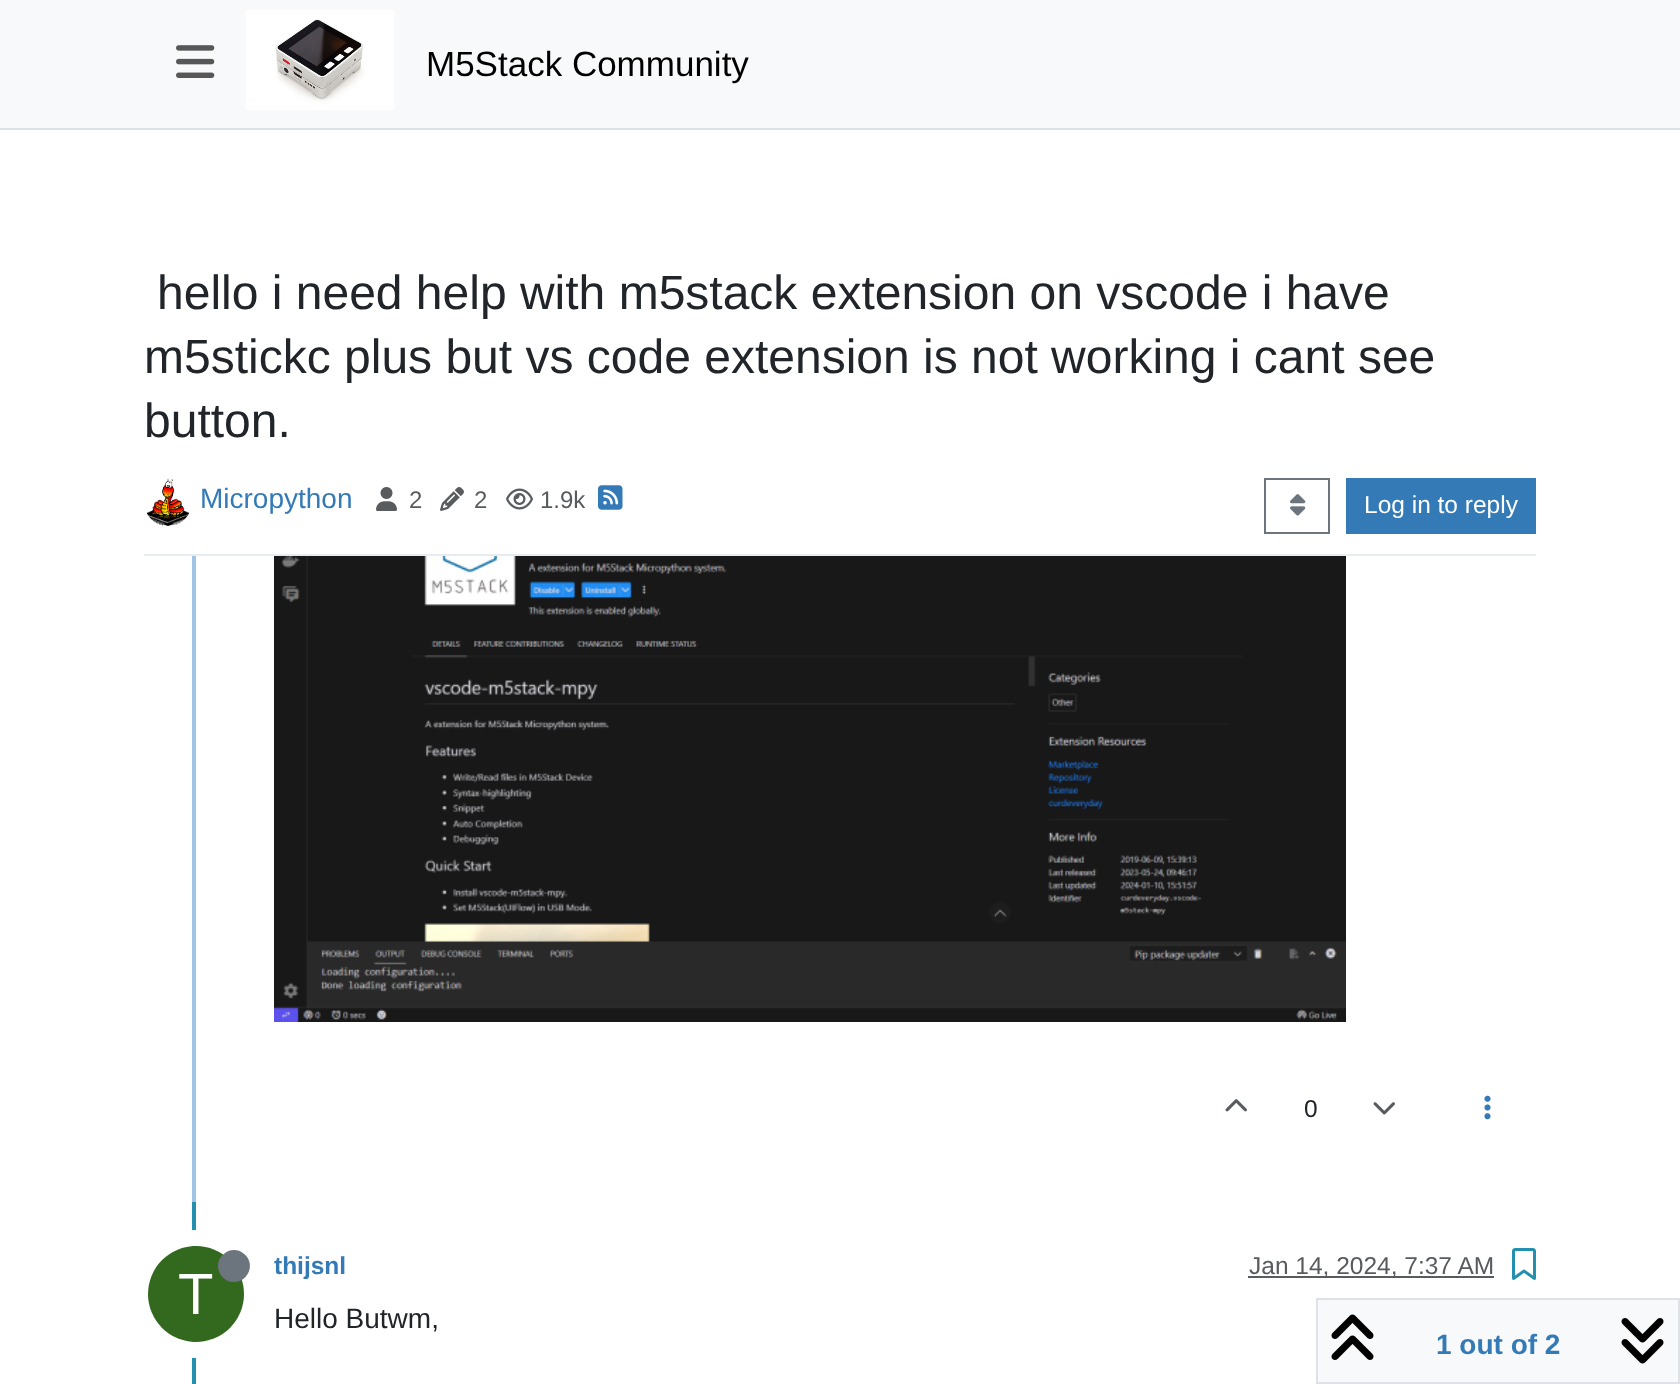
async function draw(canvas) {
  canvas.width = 1680;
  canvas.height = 1384;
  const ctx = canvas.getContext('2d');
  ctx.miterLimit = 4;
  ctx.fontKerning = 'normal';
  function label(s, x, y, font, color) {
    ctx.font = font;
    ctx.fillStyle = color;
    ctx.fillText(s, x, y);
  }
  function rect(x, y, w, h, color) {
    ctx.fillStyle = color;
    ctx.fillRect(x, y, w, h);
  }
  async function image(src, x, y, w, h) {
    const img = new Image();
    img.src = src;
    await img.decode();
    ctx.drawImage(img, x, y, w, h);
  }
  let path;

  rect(0, 0, 1680, 1384, '#fff');
  rect(0, 0, 1680, 128, '#f8f9fa');
  rect(0, 128, 1680, 2, '#dee2e6');
  await image('assets/img1.png', 176, 45, 39, 33);
  await image('assets/img2.png', 246, 10, 148, 100);
  label('M5Stack Community', 426, 76, '35px Liberation Sans', '#000');
  label('hello i need help with m5stack extension on vscode i have', 157, 309, '48px Liberation Sans', '#212529');
  label('m5stickc plus but vs code extension is not working i cant see', 144, 373, '48px Liberation Sans', '#212529');
  label('button.', 144, 437, '48px Liberation Sans', '#212529');
  rect(144, 554, 1392, 2, '#e9ecef');
  await image('assets/img3.png', 146, 478, 44, 48);
  label('Micropython', 200, 508, '28px Liberation Sans', '#337ab7');
  await image('assets/img4.png', 376, 487, 21, 24);
  label('2', 409, 508, '24px Liberation Sans', '#585b5e');
  await image('assets/img5.png', 440, 487, 24, 24);
  label('2', 474, 508, '24px Liberation Sans', '#585b5e');
  await image('assets/img6.png', 506, 488, 27, 22);
  label('1.9k', 540, 508, '24px Liberation Sans', '#585b5e');
  await image('assets/img7.png', 598, 485, 25, 25);
  ctx.strokeStyle = '#6c757d';
  ctx.lineWidth = 2;
  ctx.strokeRect(1265, 479, 64, 54);
  await image('assets/img8.png', 1290, 494, 16, 22);
  rect(1346, 478, 190, 56, '#337ab7');
  label('Log in to reply', 1364, 513, '24.5px Liberation Sans', '#fff');
  rect(192, 556, 4, 646, '#a0c4e4');
  await image('assets/img9.png', 274, 556, 1072, 466);
  await image('assets/img10.png', 1225, 1099, 22, 13);
  label('0', 1304, 1117, '24.5px Liberation Sans', '#212529');
  await image('assets/img11.png', 1373, 1102, 22, 13);
  await image('assets/img12.png', 1484, 1095, 7, 25);
  rect(192, 1202, 4, 182, '#2390b0');
  label('thijsnl', 274, 1274, 'bold 24.5px Liberation Sans', '#337ab7');
  rect(1248, 1276, 246, 2, '#595c5f');
  label('Jan 14, 2024, 7:37 AM', 1249, 1274, '24.5px Liberation Sans', '#585b5e');
  await image('assets/img13.png', 1512, 1248, 24, 32);
  ctx.beginPath();
  ctx.arc(196, 1294, 56, 0, 2 * Math.PI);
  ctx.strokeStyle = '#fff';
  ctx.lineWidth = 16;
  ctx.stroke();
  ctx.fillStyle = '#33691e';
  ctx.beginPath();
  ctx.arc(196, 1294, 48, 0, 2 * Math.PI);
  ctx.fill();
  ctx.fillStyle = '#6c757d';
  path = new Path2D('M234 1282C249 1282 256 1262.5 243.5 1253.5C241 1251 237.5 1250 234 1250C230.5 1250 227 1251 224.5 1253.5C212 1262.5 219 1282 234 1282Z');
  ctx.fill(path);
  label('T', 178, 1314, '58px Liberation Sans', '#fff');
  label('Hello Butwm,', 274, 1328, '28px Liberation Sans', '#212529');
  ctx.fillStyle = '#f8f9fa';
  ctx.beginPath();
  ctx.rect(1317, 1299, 362, 84);
  ctx.fill();
  ctx.strokeStyle = '#dee2e6';
  ctx.lineWidth = 2;
  ctx.stroke();
  await image('assets/img14.png', 1331, 1314, 43, 46);
  label('1 out of 2', 1436, 1354, 'bold 28px Liberation Sans', '#337ab7');
  await image('assets/img15.png', 1621, 1318, 43, 46);
}

draw(document.querySelector('canvas'));
